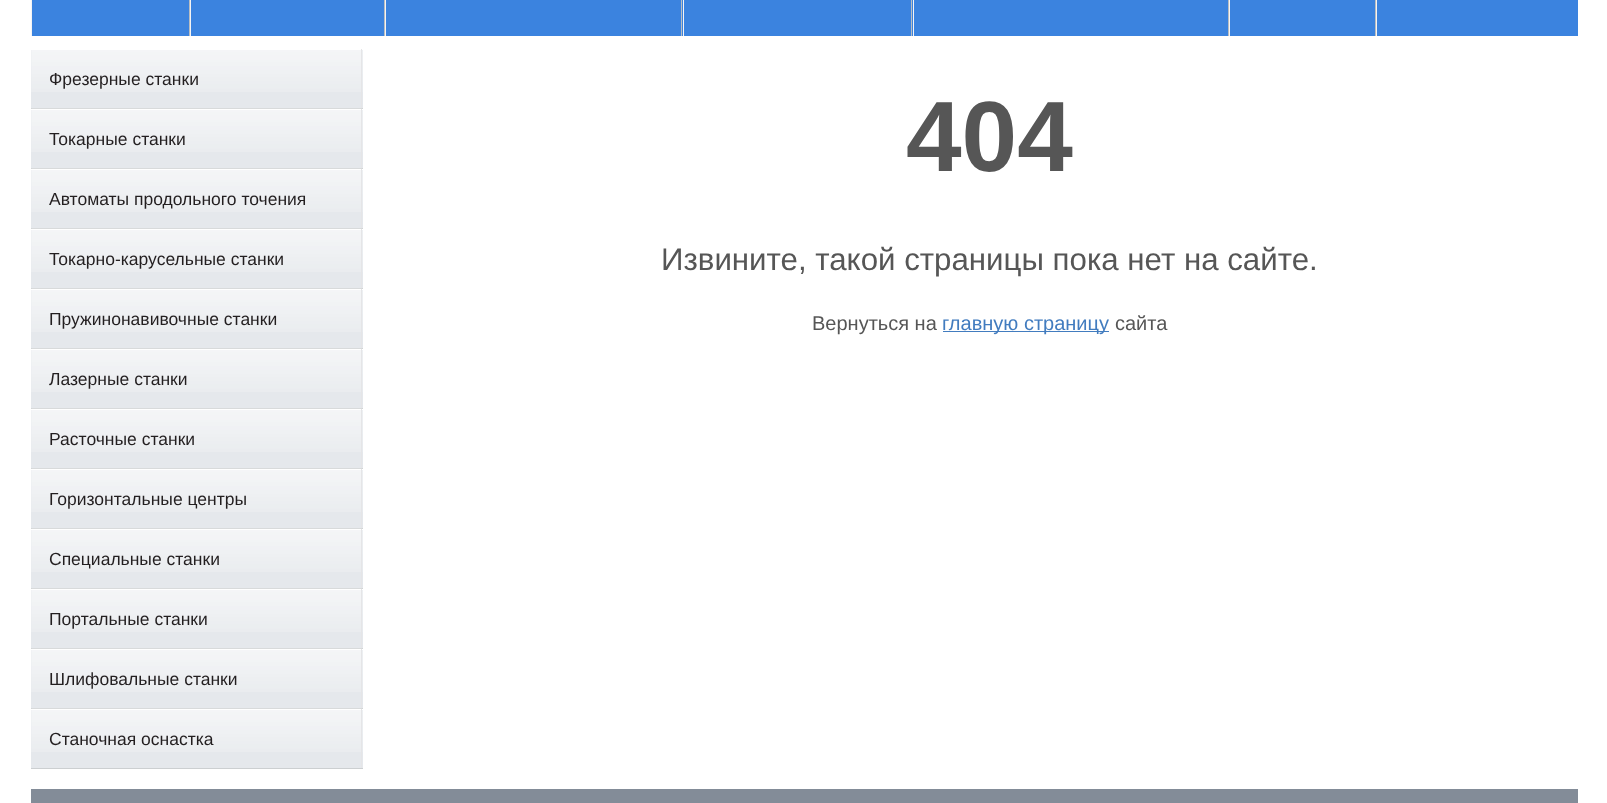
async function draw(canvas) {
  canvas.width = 1607;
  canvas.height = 803;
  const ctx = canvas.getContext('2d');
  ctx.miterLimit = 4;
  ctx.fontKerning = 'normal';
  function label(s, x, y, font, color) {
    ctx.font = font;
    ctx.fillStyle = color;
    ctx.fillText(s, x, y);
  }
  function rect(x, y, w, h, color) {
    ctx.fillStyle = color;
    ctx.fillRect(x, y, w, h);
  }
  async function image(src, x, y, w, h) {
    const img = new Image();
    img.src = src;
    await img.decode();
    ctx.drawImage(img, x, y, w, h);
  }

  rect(0, 0, 1607, 803, '#fff');
  rect(32, 0, 1546, 36, '#3b83df');
  rect(189, 0, 1, 36, '#b9bdc1');
  rect(31, 0, 1, 36, '#f5f4f4');
  rect(384, 0, 1, 36, '#b9bdc1');
  rect(190, 0, 1, 36, '#f5f4f4');
  rect(681, 0, 1, 36, '#b9bdc1');
  rect(385, 0, 1, 36, '#f5f4f4');
  rect(911, 0, 1, 36, '#b9bdc1');
  rect(683, 0, 1, 36, '#f5f4f4');
  rect(1228, 0, 1, 36, '#b9bdc1');
  rect(913, 0, 1, 36, '#f5f4f4');
  rect(1375, 0, 1, 36, '#b9bdc1');
  rect(1229, 0, 1, 36, '#f5f4f4');
  rect(1376, 0, 1, 36, '#f5f4f4');
  rect(31, 50, 332, 58, '#e5e8ec');
  await image('assets/img1.png', 31, 50, 332, 42);
  rect(31, 108, 332, 1, '#cccfd1');
  rect(361, 49, 1, 59, '#e5e5e7');
  label('Фрезерные станки', 49, 85, '17.5px Liberation Sans', '#231f20');
  rect(31, 110, 332, 58, '#e5e8ec');
  await image('assets/img2.png', 31, 108, 332, 44);
  rect(31, 168, 332, 1, '#cccfd1');
  rect(31, 109, 332, 1, '#fff');
  rect(361, 109, 1, 59, '#e5e5e7');
  label('Токарные станки', 49, 145, '17.5px Liberation Sans', '#231f20');
  rect(31, 170, 332, 58, '#e5e8ec');
  await image('assets/img2.png', 31, 168, 332, 44);
  rect(31, 228, 332, 1, '#cccfd1');
  rect(31, 169, 332, 1, '#fff');
  rect(361, 169, 1, 59, '#e5e5e7');
  label('Автоматы продольного точения', 49, 205, '17.5px Liberation Sans', '#231f20');
  rect(31, 230, 332, 58, '#e5e8ec');
  await image('assets/img2.png', 31, 228, 332, 44);
  rect(31, 288, 332, 1, '#cccfd1');
  rect(31, 229, 332, 1, '#fff');
  rect(361, 229, 1, 59, '#e5e5e7');
  label('Токарно-карусельные станки', 49, 265, '17.5px Liberation Sans', '#231f20');
  rect(31, 290, 332, 58, '#e5e8ec');
  await image('assets/img3.png', 31, 288, 332, 44);
  rect(31, 348, 332, 1, '#cccfd1');
  rect(31, 289, 332, 1, '#fff');
  rect(361, 289, 1, 59, '#e5e5e7');
  label('Пружинонавивочные станки', 49, 325, '17.5px Liberation Sans', '#231f20');
  rect(31, 350, 332, 58, '#e5e8ec');
  await image('assets/img2.png', 31, 348, 332, 44);
  rect(31, 408, 332, 1, '#cccfd1');
  rect(31, 349, 332, 1, '#fff');
  rect(361, 349, 1, 59, '#e5e5e7');
  label('Лазерные станки', 49, 385, '17.5px Liberation Sans', '#231f20');
  rect(31, 410, 332, 58, '#e5e8ec');
  await image('assets/img2.png', 31, 408, 332, 44);
  rect(31, 468, 332, 1, '#cccfd1');
  rect(31, 409, 332, 1, '#fff');
  rect(361, 409, 1, 59, '#e5e5e7');
  label('Расточные станки', 49, 445, '17.5px Liberation Sans', '#231f20');
  rect(31, 470, 332, 58, '#e5e8ec');
  await image('assets/img2.png', 31, 468, 332, 44);
  rect(31, 528, 332, 1, '#cccfd1');
  rect(31, 469, 332, 1, '#fff');
  rect(361, 469, 1, 59, '#e5e5e7');
  label('Горизонтальные центры', 49, 505, '17.5px Liberation Sans', '#231f20');
  rect(31, 530, 332, 58, '#e5e8ec');
  await image('assets/img2.png', 31, 528, 332, 44);
  rect(31, 588, 332, 1, '#cccfd1');
  rect(31, 529, 332, 1, '#fff');
  rect(361, 529, 1, 59, '#e5e5e7');
  label('Специальные станки', 49, 565, '17.5px Liberation Sans', '#231f20');
  rect(31, 590, 332, 58, '#e5e8ec');
  await image('assets/img2.png', 31, 588, 332, 44);
  rect(31, 648, 332, 1, '#cccfd1');
  rect(31, 589, 332, 1, '#fff');
  rect(361, 589, 1, 59, '#e5e5e7');
  label('Портальные станки', 49, 625, '17.5px Liberation Sans', '#231f20');
  rect(31, 650, 332, 58, '#e5e8ec');
  await image('assets/img2.png', 31, 648, 332, 44);
  rect(31, 708, 332, 1, '#cccfd1');
  rect(31, 649, 332, 1, '#fff');
  rect(361, 649, 1, 59, '#e5e5e7');
  label('Шлифовальные станки', 49, 685, '17.5px Liberation Sans', '#231f20');
  rect(31, 710, 332, 58, '#e5e8ec');
  await image('assets/img2.png', 31, 708, 332, 44);
  rect(31, 768, 332, 1, '#cccfd1');
  rect(31, 709, 332, 1, '#fff');
  rect(361, 709, 1, 59, '#e5e5e7');
  label('Станочная оснастка', 49, 745, '17.5px Liberation Sans', '#231f20');
  label('404', 906, 171, 'bold 100px Liberation Sans', '#565656');
  label('Извините, такой страницы пока нет на сайте.', 661, 270, '31.25px Liberation Sans', '#565656');
  label('Вернуться на', 812, 330, '20px Liberation Sans', '#565656');
  rect(943, 331, 166, 1, '#427cbf');
  label('главную страницу', 942, 330, '20px Liberation Sans', '#427cbf');
  label('сайта', 1115, 330, '20px Liberation Sans', '#565656');
  rect(31, 789, 1547, 14, '#838c98');
}

draw(document.querySelector('canvas'));
